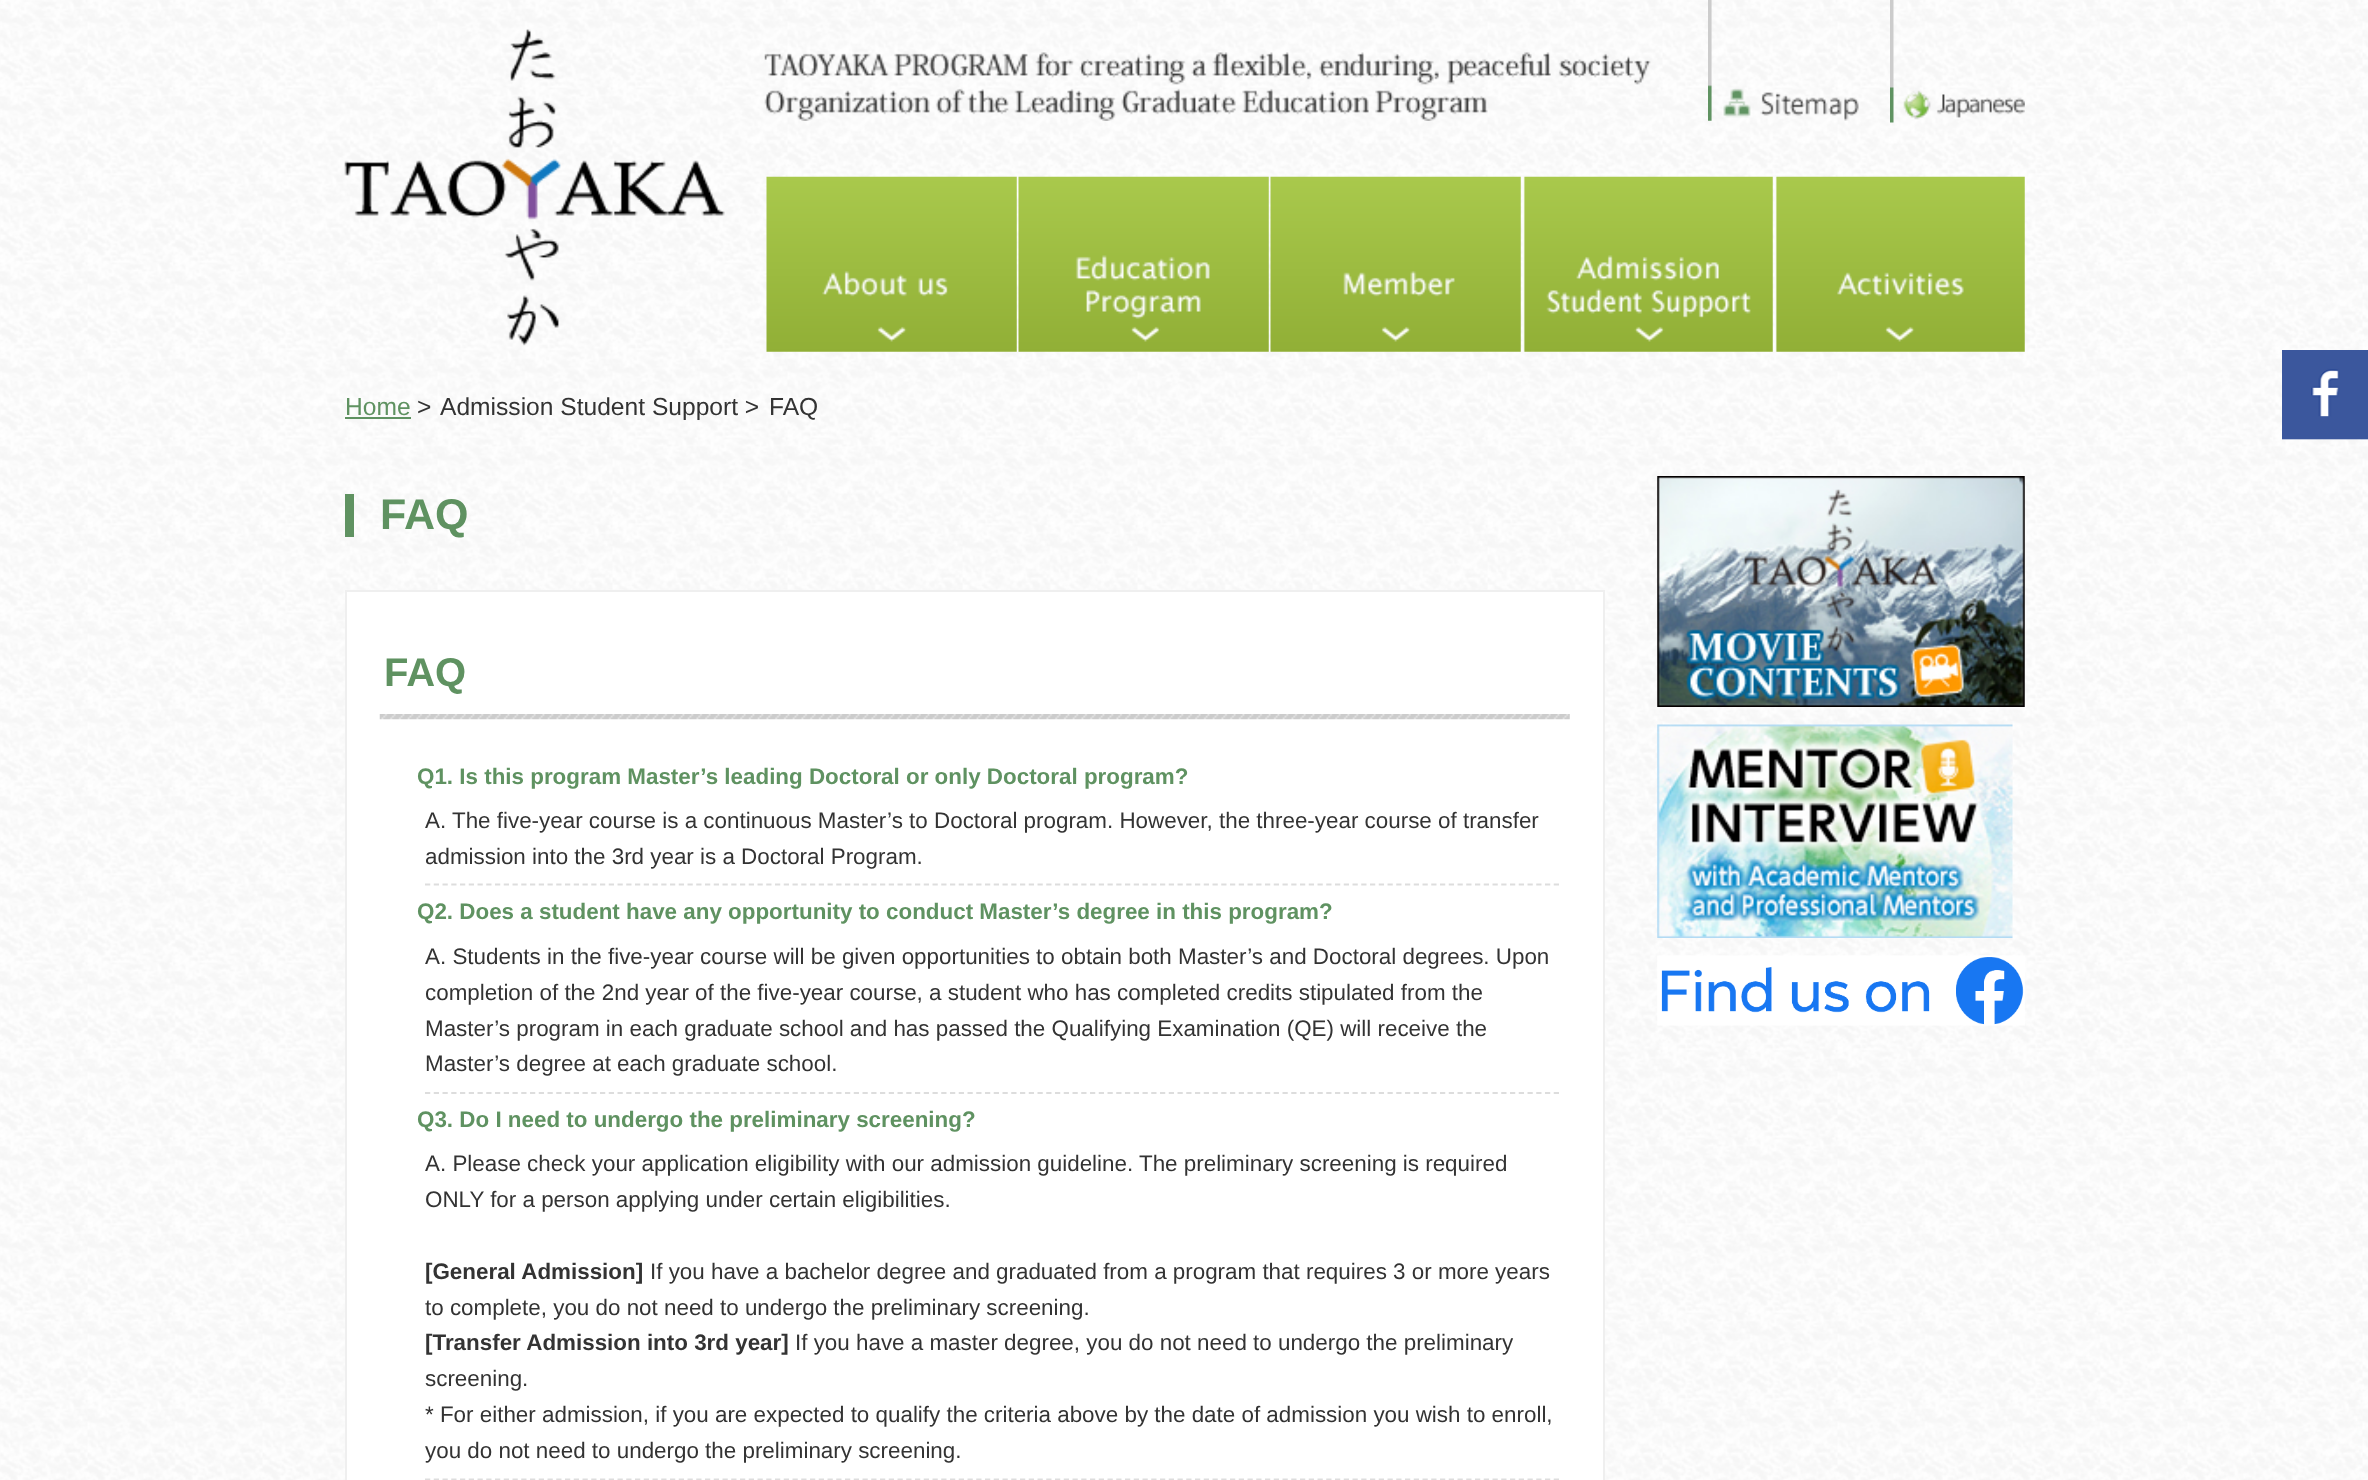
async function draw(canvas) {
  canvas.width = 2368;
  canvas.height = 1480;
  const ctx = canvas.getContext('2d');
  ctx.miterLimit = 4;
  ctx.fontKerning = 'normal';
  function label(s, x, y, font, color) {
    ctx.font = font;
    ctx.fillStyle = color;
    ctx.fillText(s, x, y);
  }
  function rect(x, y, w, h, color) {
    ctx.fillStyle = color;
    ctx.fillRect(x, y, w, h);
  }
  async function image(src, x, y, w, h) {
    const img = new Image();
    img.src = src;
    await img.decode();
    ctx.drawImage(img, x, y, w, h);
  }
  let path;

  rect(0, 0, 2368, 1480, '#fff');
  await image('assets/img1.png', 0, 0, 2368, 1480);
  await image('assets/img2.png', 344, 29, 381, 317);
  await image('assets/img3.png', 764, 52, 887, 69);
  await image('assets/img4.png', 1708, 0, 151, 121);
  await image('assets/img5.png', 1890, 0, 135, 123);
  await image('assets/img6.png', 766, 176, 251, 176);
  await image('assets/img7.png', 1018, 176, 251, 176);
  await image('assets/img8.png', 1270, 176, 251, 176);
  await image('assets/img9.png', 1522, 176, 251, 176);
  await image('assets/img10.png', 1774, 176, 251, 176);
  label('Home', 345, 415, '24.6px Liberation Sans', '#5f9261');
  rect(345, 417, 66, 2, '#5f9261');
  label('>', 417, 415, '24.6px Liberation Sans', '#333');
  label('Admission Student Support >', 440, 415, '24.6px Liberation Sans', '#333');
  label('FAQ', 769, 415, '24.6px Liberation Sans', '#333');
  await image('assets/img11.png', 2282, 350, 86, 90);
  rect(345, 494, 9, 43, '#5f9261');
  label('FAQ', 380, 529, 'bold 43px Liberation Sans', '#5f9261');
  ctx.fillStyle = '#fff';
  ctx.beginPath();
  ctx.rect(346, 591, 1258, 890);
  ctx.fill();
  ctx.strokeStyle = '#efefef';
  ctx.lineWidth = 2;
  ctx.stroke();
  await image('assets/img12.png', 379, 714, 1191, 6);
  label('FAQ', 384, 686, 'bold 40px Liberation Sans', '#5f9261');
  label('Q1. Is this program Master’s leading Doctoral or only Doctoral program?', 417, 784, 'bold 22.4px Liberation Sans', '#5f9261');
  path = new Path2D('M425 884.5H1559');
  ctx.strokeStyle = '#ddd';
  ctx.lineWidth = 1.8;
  ctx.setLineDash([5.25, 3.5]);
  ctx.stroke(path);
  label('A. The five-year course is a continuous Master’s to Doctoral program. However, the three-year course of transfer', 425, 828, '22.4px Liberation Sans', '#333');
  label('admission into the 3rd year is a Doctoral Program.', 425, 864, '22.4px Liberation Sans', '#333');
  label('Q2. Does a student have any opportunity to conduct Master’s degree in this program?', 417, 919, 'bold 22.4px Liberation Sans', '#5f9261');
  path = new Path2D('M425 1093H1559');
  ctx.stroke(path);
  label('A. Students in the five-year course will be given opportunities to obtain both Master’s and Doctoral degrees. Upon', 425, 964, '22.4px Liberation Sans', '#333');
  label('completion of the 2nd year of the five-year course, a student who has completed credits stipulated from the', 425, 1000, '22.4px Liberation Sans', '#333');
  label('Master’s program in each graduate school and has passed the Qualifying Examination (QE) will receive the', 425, 1036, '22.4px Liberation Sans', '#333');
  label('Master’s degree at each graduate school.', 425, 1071, '22.4px Liberation Sans', '#333');
  label('Q3. Do I need to undergo the preliminary screening?', 417, 1127, 'bold 22.4px Liberation Sans', '#5f9261');
  path = new Path2D('M425 1479.5H1559');
  ctx.stroke(path);
  label('A. Please check your application eligibility with our admission guideline. The preliminary screening is required', 425, 1171, '22.4px Liberation Sans', '#333');
  label('ONLY for a person applying under certain eligibilities.', 425, 1207, '22.4px Liberation Sans', '#333');
  label('[General Admission]', 425, 1279, 'bold 22.4px Liberation Sans', '#333');
  label('If you have a bachelor degree and graduated from a program that requires 3 or more years', 650, 1279, '22.4px Liberation Sans', '#333');
  label('to complete, you do not need to undergo the preliminary screening.', 425, 1315, '22.4px Liberation Sans', '#333');
  label('[Transfer Admission into 3rd year]', 425, 1350, 'bold 22.4px Liberation Sans', '#333');
  label('If you have a master degree, you do not need to undergo the preliminary', 795, 1350, '22.4px Liberation Sans', '#333');
  label('screening.', 425, 1386, '22.4px Liberation Sans', '#333');
  label('* For either admission, if you are expected to qualify the criteria above by the date of admission you wish to enroll,', 425, 1422, '22.4px Liberation Sans', '#333');
  label('you do not need to undergo the preliminary screening.', 425, 1458, '22.4px Liberation Sans', '#333');
  await image('assets/img13.png', 1657, 476, 368, 231);
  await image('assets/img14.png', 1657, 724, 356, 214);
  await image('assets/img15.png', 1657, 955, 368, 71);
}

draw(document.querySelector('canvas'));
